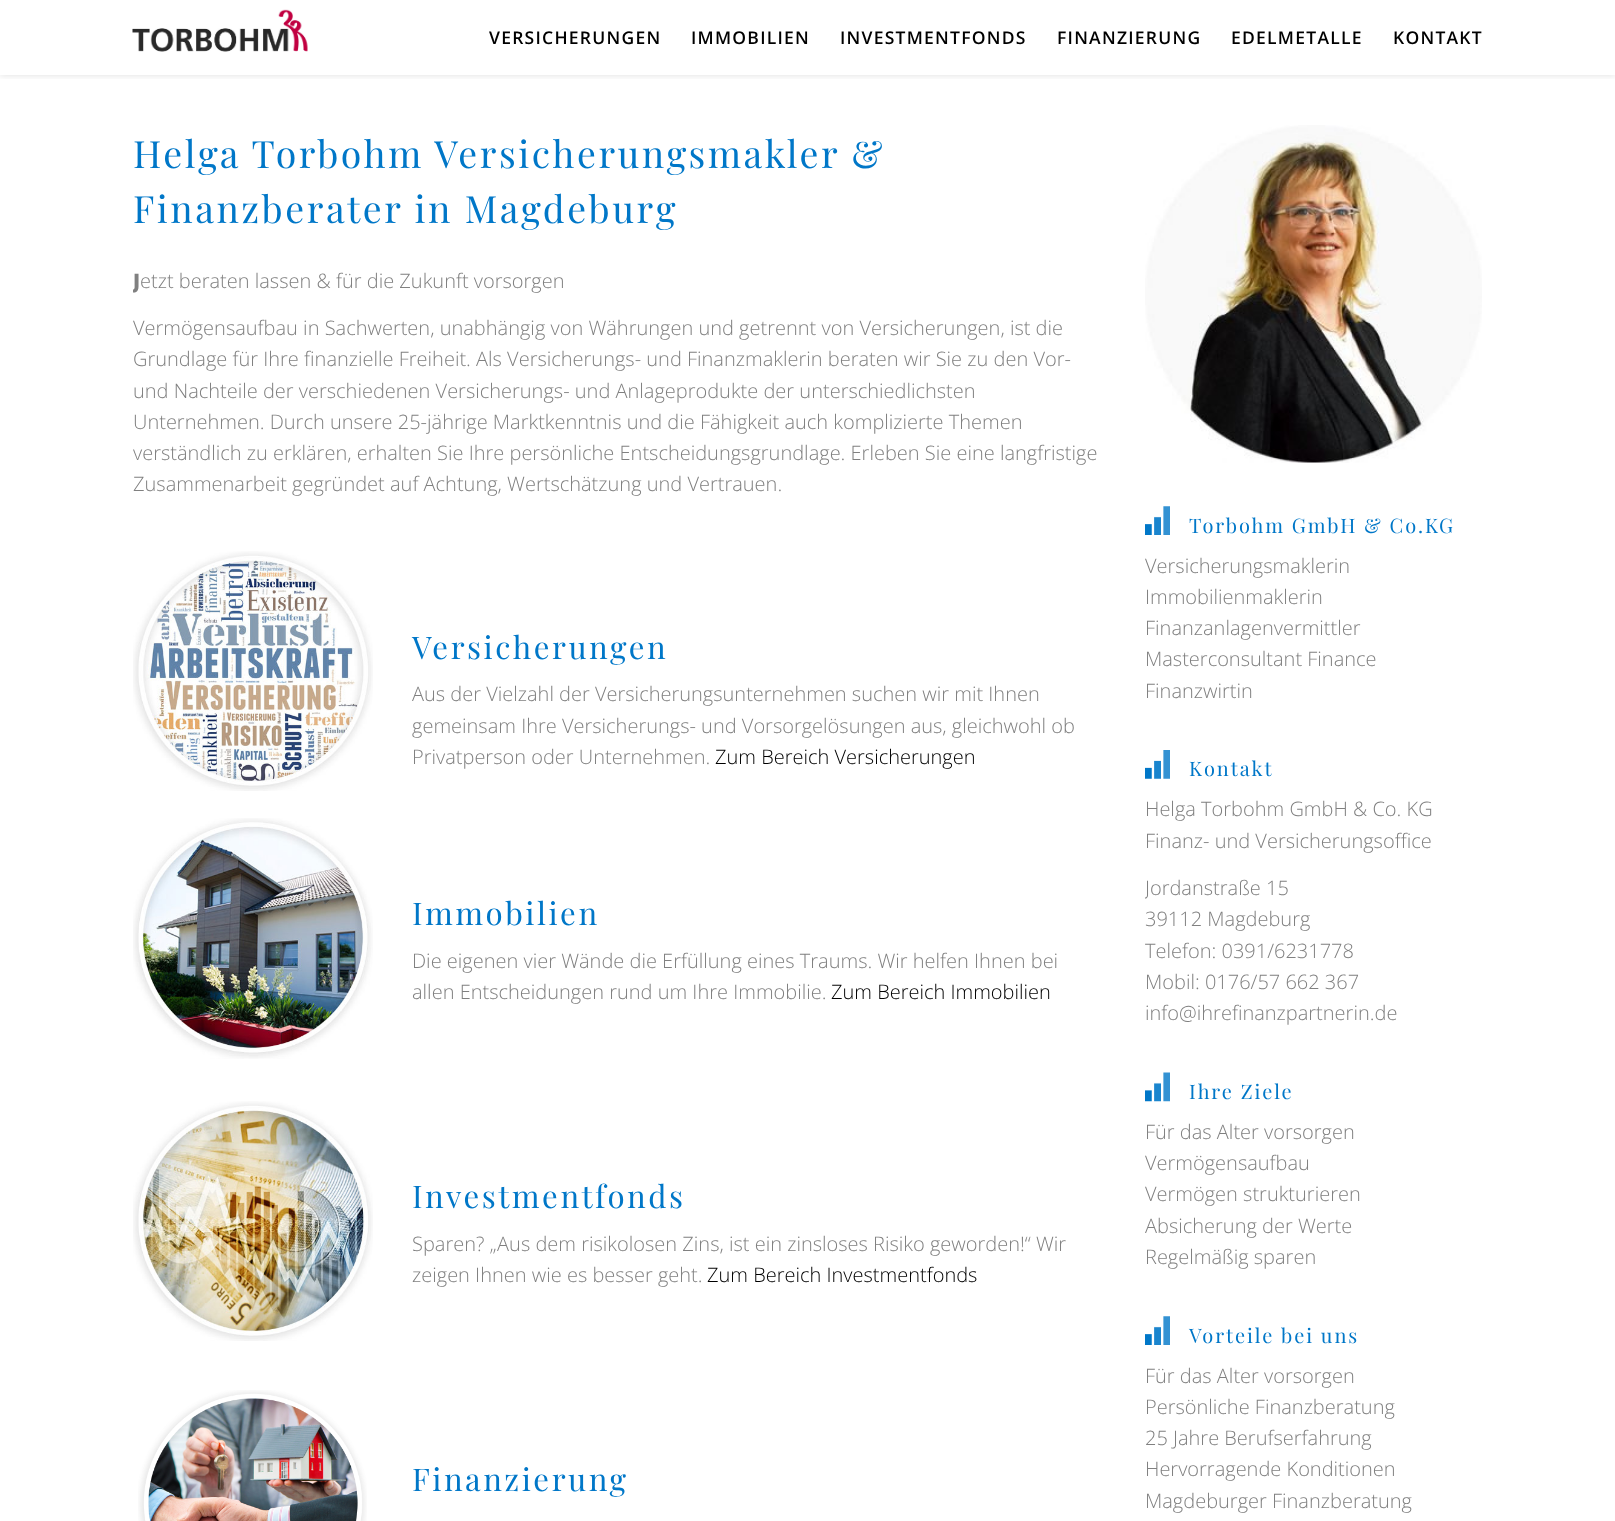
async function draw(canvas) {
  canvas.width = 1615;
  canvas.height = 1521;
  const ctx = canvas.getContext('2d');
  ctx.miterLimit = 4;
  ctx.fontKerning = 'normal';
  function label(s, x, y, font, color) {
    ctx.font = font;
    ctx.fillStyle = color;
    ctx.fillText(s, x, y);
  }
  function rect(x, y, w, h, color) {
    ctx.fillStyle = color;
    ctx.fillRect(x, y, w, h);
  }
  async function image(src, x, y, w, h) {
    const img = new Image();
    img.src = src;
    await img.decode();
    ctx.drawImage(img, x, y, w, h);
  }

  rect(0, 0, 1615, 1521, '#fff');
  ctx.save();
  ctx.beginPath();
  ctx.rect(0, 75, 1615, 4);
  ctx.clip();
  ctx.fillStyle = '#0000001a';
  ctx.filter = 'blur(3px)';
  ctx.beginPath();
  ctx.rect(0, 1, 1615, 75);
  ctx.fill();
  ctx.filter = 'none';
  ctx.restore();
  await image('assets/img1.png', 132, 9, 176, 43);
  ctx.letterSpacing = '1.25px';
  label('VERSICHERUNGEN', 489, 44, '600 17.5px Open Sans', '#000');
  label('IMMOBILIEN', 691, 44, '600 17.5px Open Sans', '#000');
  label('INVESTMENTFONDS', 840, 44, '600 17.5px Open Sans', '#000');
  label('FINANZIERUNG', 1057, 44, '600 17.5px Open Sans', '#000');
  label('EDELMETALLE', 1231, 44, '600 17.5px Open Sans', '#000');
  label('KONTAKT', 1393, 44, '600 17.5px Open Sans', '#000');
  ctx.letterSpacing = '2.5px';
  label('Helga Torbohm Versicherungsmakler &', 133, 168, '37.5px Playfair Display', '#0077c8');
  label('Finanzberater in Magdeburg', 133, 223, '37.5px Playfair Display', '#0077c8');
  ctx.save();
  ctx.beginPath();
  ctx.rect(133, 265, 966, 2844);
  ctx.clip();
  ctx.letterSpacing = '0px';
  label('J', 133, 288, '900 20px Noto Sans', '#808080');
  ctx.restore();
  ctx.letterSpacing = '0px';
  label('etzt beraten lassen & für die Zukunft vorsorgen', 140, 288, '300 20px Open Sans', '#808080');
  label('Vermögensaufbau in Sachwerten, unabhängig von Währungen und getrennt von Versicherungen, ist die', 133, 335, '300 20px Open Sans', '#808080');
  label('Grundlage für Ihre finanzielle Freiheit. Als Versicherungs- und Finanzmaklerin beraten wir Sie zu den Vor-', 133, 366, '300 20px Open Sans', '#808080');
  label('und Nachteile der verschiedenen Versicherungs- und Anlageprodukte der unterschiedlichsten', 133, 398, '300 20px Open Sans', '#808080');
  label('Unternehmen. Durch unsere 25-jährige Marktkenntnis und die Fähigkeit auch komplizierte Themen', 133, 429, '300 20px Open Sans', '#808080');
  label('verständlich zu erklären, erhalten Sie Ihre persönliche Entscheidungsgrundlage. Erleben Sie eine langfristige', 133, 460, '300 20px Open Sans', '#808080');
  label('Zusammenarbeit gegründet auf Achtung, Wertschätzung und Vertrauen.', 133, 491, '300 20px Open Sans', '#808080');
  await image('assets/img2.png', 133, 551, 240, 240);
  ctx.letterSpacing = '2.5px';
  label('Versicherungen', 412, 659, '31.25px Playfair Display', '#0077c8');
  ctx.letterSpacing = '0px';
  label('Aus der Vielzahl der Versicherungsunternehmen suchen wir mit Ihnen', 412, 701, '300 20px Open Sans', '#808080');
  label('gemeinsam Ihre Versicherungs- und Vorsorgelösungen aus, gleichwohl ob', 412, 733, '300 20px Open Sans', '#808080');
  label('Privatperson oder Unternehmen.', 412, 764, '300 20px Open Sans', '#808080');
  label('Zum Bereich Versicherungen', 715, 764, '300 20px Open Sans', '#000');
  await image('assets/img3.png', 133, 818, 240, 241);
  ctx.letterSpacing = '2.5px';
  label('Immobilien', 412, 925, '31.25px Playfair Display', '#0077c8');
  ctx.letterSpacing = '0px';
  label('Die eigenen vier Wände die Erfüllung eines Traums. Wir helfen Ihnen bei', 412, 968, '300 20px Open Sans', '#808080');
  label('allen Entscheidungen rund um Ihre Immobilie.', 412, 999, '300 20px Open Sans', '#808080');
  label('Zum Bereich Immobilien', 831, 999, '300 20px Open Sans', '#000');
  await image('assets/img4.png', 133, 1101, 240, 240);
  ctx.letterSpacing = '2.5px';
  label('Investmentfonds', 412, 1208, '31.25px Playfair Display', '#0077c8');
  ctx.letterSpacing = '0px';
  label('Sparen? „Aus dem risikolosen Zins, ist ein zinsloses Risiko geworden!“ Wir', 412, 1251, '300 20px Open Sans', '#808080');
  label('zeigen Ihnen wie es besser geht.', 412, 1282, '300 20px Open Sans', '#808080');
  label('Zum Bereich Investmentfonds', 707, 1282, '300 20px Open Sans', '#000');
  await image('assets/img5.png', 138, 1390, 229, 131);
  ctx.letterSpacing = '2.5px';
  label('Finanzierung', 412, 1491, '31.25px Playfair Display', '#0077c8');
  await image('assets/img6.png', 1145, 125, 337, 338);
  await image('assets/img7.png', 1145, 506, 25, 29);
  ctx.letterSpacing = '1.9px';
  label('Torbohm GmbH & Co.KG', 1189, 533, '20px Playfair Display', '#0077c8');
  ctx.letterSpacing = '0px';
  label('Versicherungsmaklerin', 1145, 573, '300 20px Open Sans', '#808080');
  label('Immobilienmaklerin', 1145, 604, '300 20px Open Sans', '#808080');
  label('Finanzanlagenvermittler', 1145, 635, '300 20px Open Sans', '#808080');
  label('Masterconsultant Finance', 1145, 666, '300 20px Open Sans', '#808080');
  label('Finanzwirtin', 1145, 698, '300 20px Open Sans', '#808080');
  await image('assets/img8.png', 1145, 750, 25, 29);
  ctx.letterSpacing = '1.9px';
  label('Kontakt', 1189, 776, '20px Playfair Display', '#0077c8');
  ctx.letterSpacing = '0px';
  label('Helga Torbohm GmbH & Co. KG', 1145, 816, '300 20px Open Sans', '#808080');
  label('Finanz- und Versicherungsoffice', 1145, 848, '300 20px Open Sans', '#808080');
  ctx.save();
  ctx.beginPath();
  ctx.rect(1145, 706, 338, 323);
  ctx.clip();
  label('Jordanstraße 15', 1145, 895, '300 20px Open Sans', '#808080');
  ctx.restore();
  label('39112 Magdeburg', 1145, 926, '300 20px Open Sans', '#808080');
  label('Telefon: 0391/6231778', 1145, 958, '300 20px Open Sans', '#808080');
  label('Mobil: 0176/57 662 367', 1145, 989, '300 20px Open Sans', '#808080');
  label('info@ihrefinanzpartnerin.de', 1145, 1020, '300 20px Open Sans', '#808080');
  await image('assets/img9.png', 1145, 1072, 25, 30);
  ctx.letterSpacing = '1.9px';
  label('Ihre Ziele', 1189, 1099, '20px Playfair Display', '#0077c8');
  ctx.letterSpacing = '0px';
  label('Für das Alter vorsorgen', 1145, 1139, '300 20px Open Sans', '#808080');
  label('Vermögensaufbau', 1145, 1170, '300 20px Open Sans', '#808080');
  label('Vermögen strukturieren', 1145, 1201, '300 20px Open Sans', '#808080');
  label('Absicherung der Werte', 1145, 1233, '300 20px Open Sans', '#808080');
  label('Regelmäßig sparen', 1145, 1264, '300 20px Open Sans', '#808080');
  await image('assets/img7.png', 1145, 1316, 25, 29);
  ctx.letterSpacing = '1.9px';
  label('Vorteile bei uns', 1189, 1343, '20px Playfair Display', '#0077c8');
  ctx.letterSpacing = '0px';
  label('Für das Alter vorsorgen', 1145, 1383, '300 20px Open Sans', '#808080');
  label('Persönliche Finanzberatung', 1145, 1414, '300 20px Open Sans', '#808080');
  label('25 Jahre Berufserfahrung', 1145, 1445, '300 20px Open Sans', '#808080');
  label('Hervorragende Konditionen', 1145, 1476, '300 20px Open Sans', '#808080');
  label('Magdeburger Finanzberatung', 1145, 1508, '300 20px Open Sans', '#808080');
}

draw(document.querySelector('canvas'));
